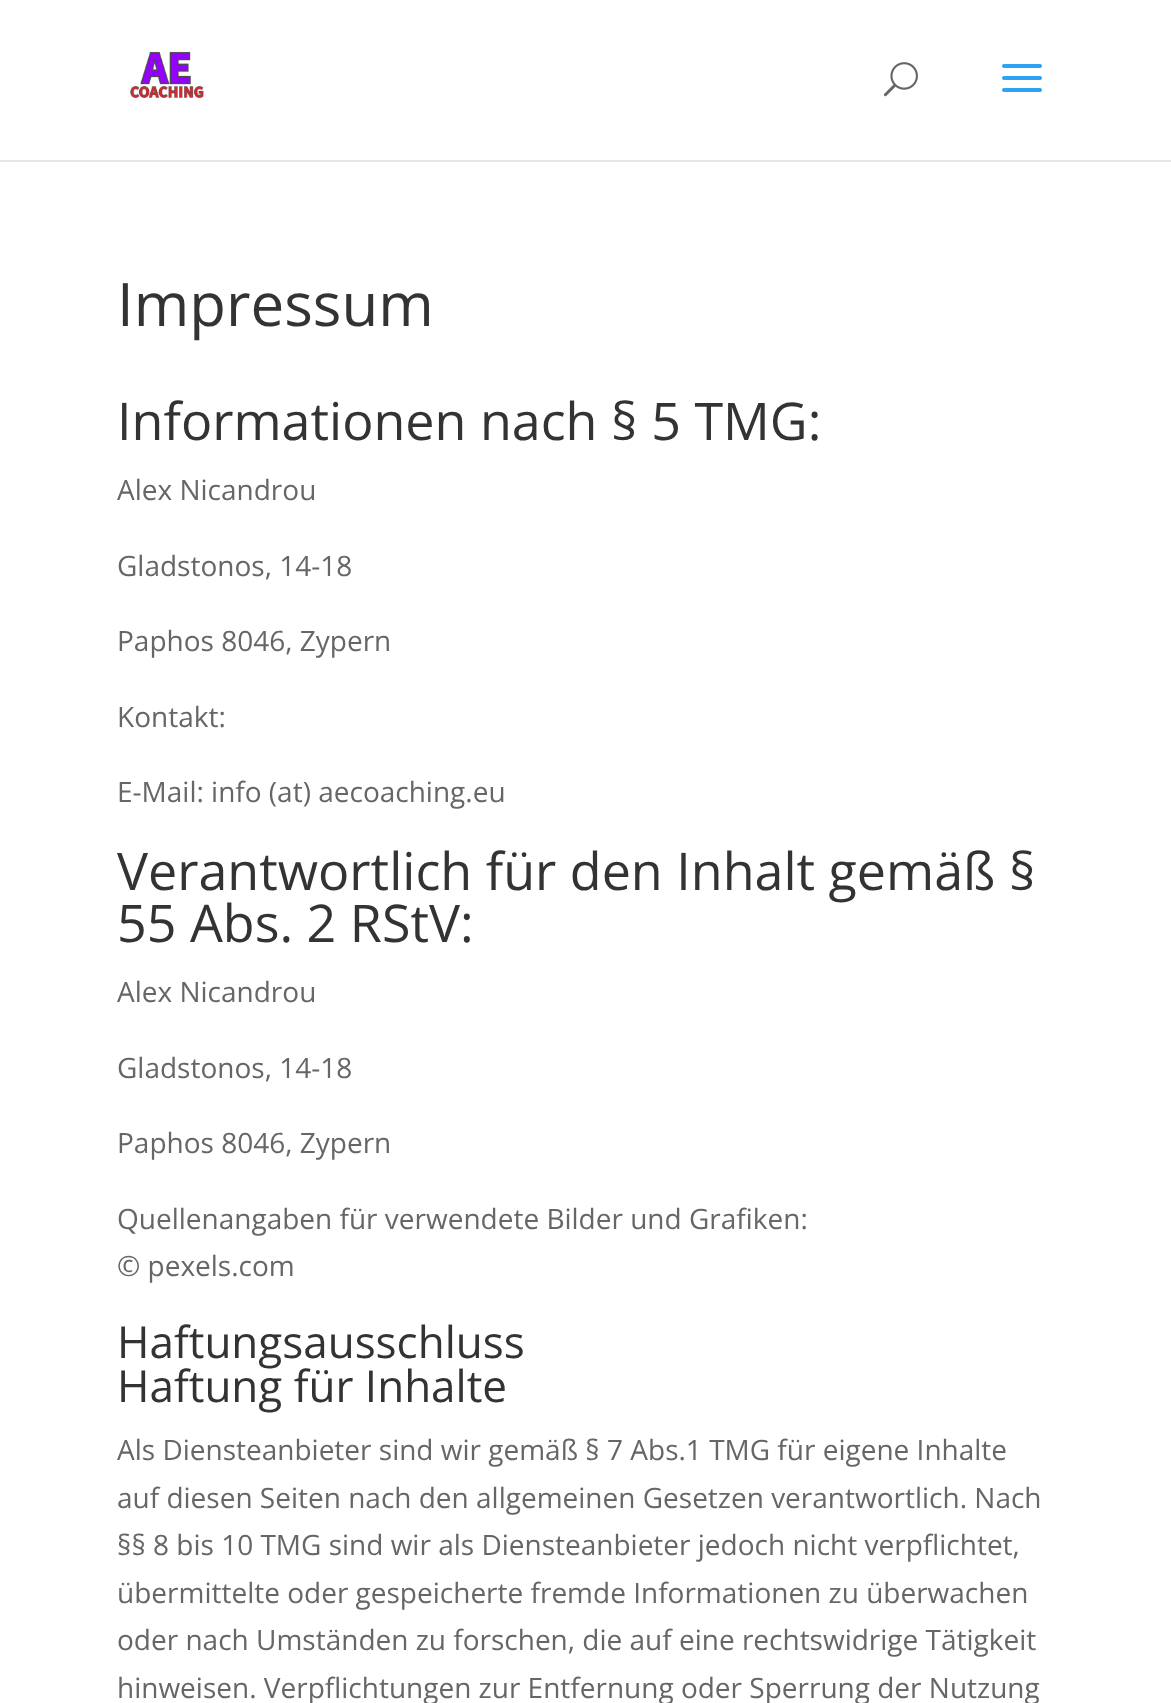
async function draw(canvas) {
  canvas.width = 1171;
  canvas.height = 1703;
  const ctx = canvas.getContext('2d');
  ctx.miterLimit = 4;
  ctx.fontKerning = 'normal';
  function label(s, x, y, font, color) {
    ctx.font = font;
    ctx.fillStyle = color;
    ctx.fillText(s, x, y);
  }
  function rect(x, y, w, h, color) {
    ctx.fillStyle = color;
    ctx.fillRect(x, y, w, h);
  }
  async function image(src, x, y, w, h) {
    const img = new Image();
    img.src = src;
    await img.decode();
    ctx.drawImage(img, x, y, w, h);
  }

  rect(0, 0, 1171, 1703, '#fff');
  rect(0, 160, 1171, 2, '#e6e6e6');
  await image('assets/img1.png', 130, 51, 74, 47);
  await image('assets/img2.png', 883, 62, 35, 35);
  await image('assets/img3.png', 1002, 64, 40, 28);
  label('Impressum', 117, 326, '60px Open Sans', '#333');
  label('Informationen nach § 5 TMG:', 117, 440, '52px Open Sans', '#333');
  label('Alex Nicandrou', 117, 500, '28px Open Sans', '#666');
  label('Gladstonos, 14-18', 117, 576, '28px Open Sans', '#666');
  label('Paphos 8046, Zypern', 117, 651, '28px Open Sans', '#666');
  label('Kontakt:', 117, 727, '28px Open Sans', '#666');
  label('E-Mail: info (at) aecoaching.eu', 117, 802, '28px Open Sans', '#666');
  label('Verantwortlich für den Inhalt gemäß §', 117, 890, '52px Open Sans', '#333');
  label('55 Abs. 2 RStV:', 117, 942, '52px Open Sans', '#333');
  label('Alex Nicandrou', 117, 1002, '28px Open Sans', '#666');
  label('Gladstonos, 14-18', 117, 1078, '28px Open Sans', '#666');
  label('Paphos 8046, Zypern', 117, 1153, '28px Open Sans', '#666');
  label('Quellenangaben für verwendete Bilder und Grafiken:', 117, 1229, '28px Open Sans', '#666');
  label('© pexels.com', 117, 1276, '28px Open Sans', '#666');
  label('Haftungsausschluss', 117, 1358, '44px Open Sans', '#333');
  label('Haftung für Inhalte', 117, 1402, '44px Open Sans', '#333');
  label('Als Diensteanbieter sind wir gemäß § 7 Abs.1 TMG für eigene Inhalte', 117, 1460, '28px Open Sans', '#666');
  label('auf diesen Seiten nach den allgemeinen Gesetzen verantwortlich. Nach', 117, 1508, '28px Open Sans', '#666');
  label('§§ 8 bis 10 TMG sind wir als Diensteanbieter jedoch nicht verpflichtet,', 117, 1555, '28px Open Sans', '#666');
  label('übermittelte oder gespeicherte fremde Informationen zu überwachen', 117, 1603, '28px Open Sans', '#666');
  label('oder nach Umständen zu forschen, die auf eine rechtswidrige Tätigkeit', 117, 1650, '28px Open Sans', '#666');
  label('hinweisen. Verpflichtungen zur Entfernung oder Sperrung der Nutzung', 117, 1698, '28px Open Sans', '#666');
}

draw(document.querySelector('canvas'));
